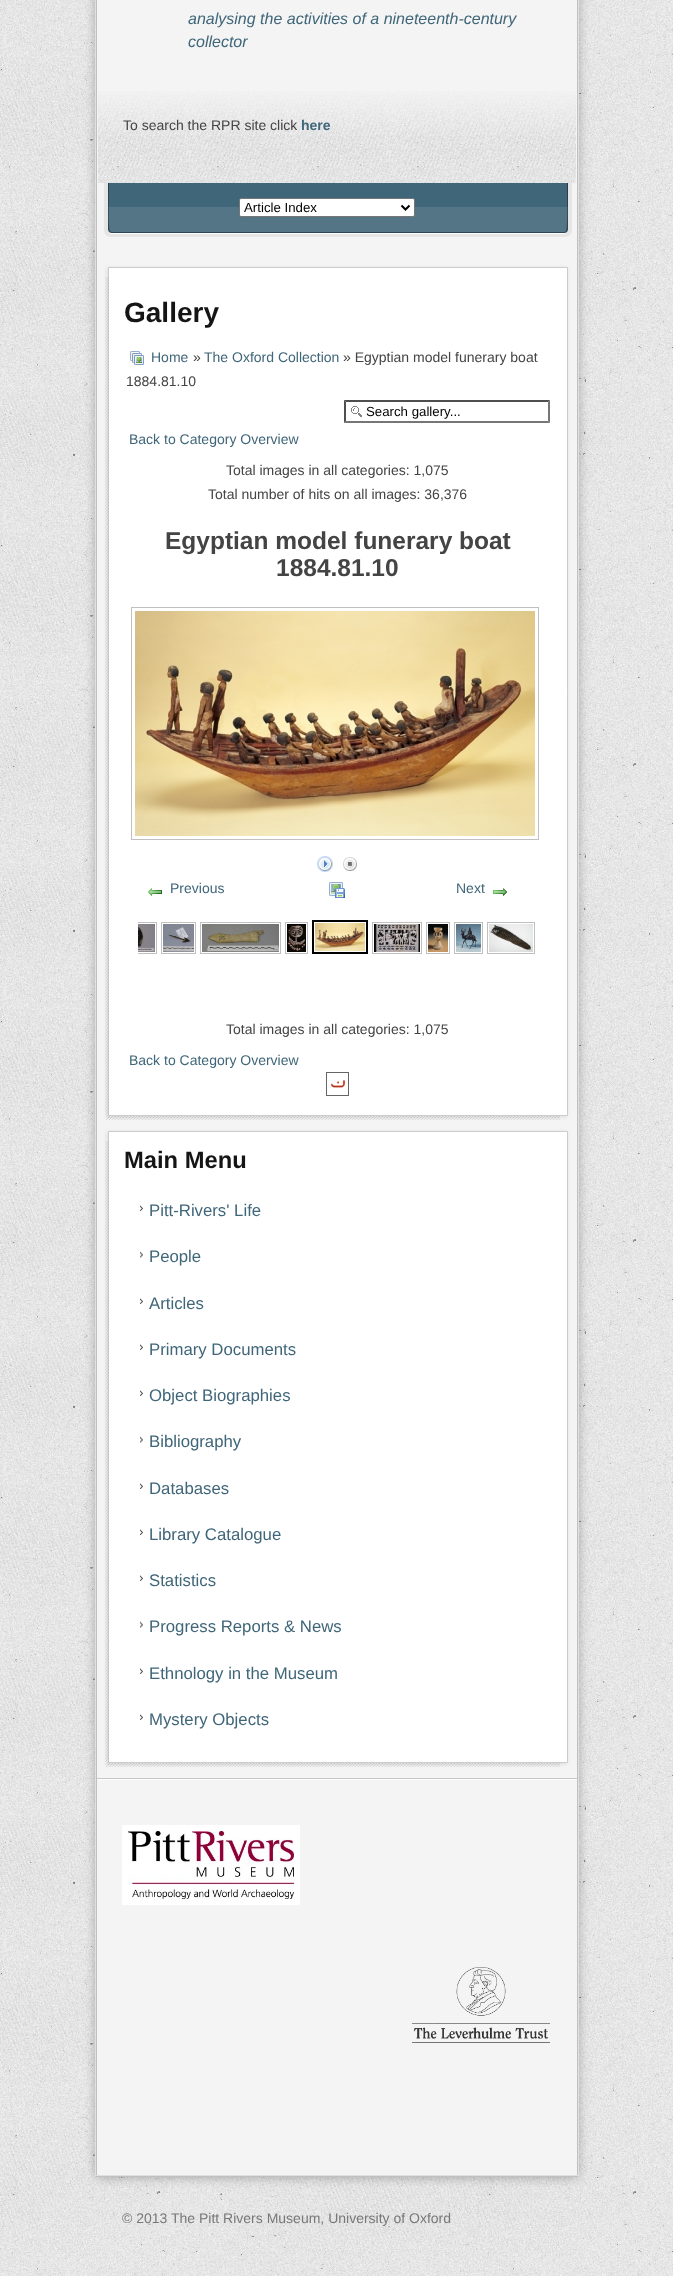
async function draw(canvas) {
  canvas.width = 673;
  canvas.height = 2276;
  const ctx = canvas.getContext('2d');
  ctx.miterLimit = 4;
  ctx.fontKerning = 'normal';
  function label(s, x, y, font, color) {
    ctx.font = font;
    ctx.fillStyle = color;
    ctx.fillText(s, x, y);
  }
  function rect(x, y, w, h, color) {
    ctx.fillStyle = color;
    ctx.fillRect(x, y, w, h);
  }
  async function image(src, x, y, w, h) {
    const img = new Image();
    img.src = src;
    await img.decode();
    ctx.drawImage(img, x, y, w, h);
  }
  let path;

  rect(0, 0, 673, 2276, '#fff');
  await image('assets/img1.png', 0, 0, 673, 2276);
  ctx.fillStyle = '#0000004d';
  ctx.filter = 'blur(6px)';
  ctx.beginPath();
  ctx.rect(96, -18, 482, 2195);
  ctx.fill();
  ctx.filter = 'none';
  rect(97, 0, 480, 2175, '#f4f4f4');
  rect(577, 0, 1, 2177, '#c0c0c0');
  rect(96, 2176, 482, 1, '#c0c0c0');
  rect(96, 0, 1, 2177, '#c0c0c0');
  rect(578, 0, 1, 2176, '#e0e0e0');
  rect(95, 2175, 484, 1, '#e0e0e0');
  rect(95, 0, 1, 2176, '#e0e0e0');
  await image('assets/img2.png', 98, 91, 478, 92);
  label('analysing the activities of a nineteenth-century', 188, 24, 'italic 16px Liberation Sans', '#406679');
  label('collector', 188, 47, 'italic 16px Liberation Sans', '#406679');
  label('To search the RPR site click', 123, 130, '14px Liberation Sans', '#444');
  label('here', 301, 130, 'bold 14px Liberation Sans', '#406679');
  ctx.fillStyle = '#e5e5e5';
  path = new Path2D('M104 183H572V230C572 234 569 237 565 237H111C107 237 104 234 104 230ZM108 183H568V230C568 232 567 233 565 233H111C109 233 108 232 108 230Z');
  ctx.fill(path, 'evenodd');
  ctx.fillStyle = '#ffffffe6';
  path = new Path2D('M108 229C108 232 109 234 112 234H564L566 233L567 232L568 229C568 231 566 233 564 233H112C110 233 108 231 108 229Z');
  ctx.fill(path);
  ctx.fillStyle = '#406679';
  ctx.beginPath();
  ctx.roundRect(108, 183, 460, 50, [0, 0, 4, 4]);
  ctx.fill();
  rect(108, 207, 460, 25, '#ffffff1a');
  ctx.fillStyle = '#00000066';
  path = new Path2D('M568 183H567C567 189 568 229 566 231L567 232L568 229Z');
  ctx.fill(path);
  ctx.fillStyle = '#0000004d';
  path = new Path2D('M112 233H564L567 232L566 231L564 232H112L110 231L109 232Z');
  ctx.fill(path);
  ctx.fillStyle = '#00000066';
  path = new Path2D('M108 183H109C109 189 108 229 110 231L109 232L108 229Z');
  ctx.fill(path);
  ctx.fillStyle = '#fff';
  ctx.beginPath();
  ctx.roundRect(239.5, 198.5, 175, 18, 1.5);
  ctx.fill();
  ctx.strokeStyle = '#767676';
  ctx.stroke();
  path = new Path2D('M401.5 205.5L405.5 209.5L409.5 205.5');
  ctx.strokeStyle = '#000';
  ctx.lineWidth = 2;
  ctx.stroke(path);
  label('Article Index', 244, 212, '13.25px Liberation Sans', '#000');
  ctx.fillStyle = '#0000001a';
  ctx.filter = 'blur(2px)';
  ctx.beginPath();
  ctx.rect(107, 268, 460, 849);
  ctx.fill();
  ctx.filter = 'none';
  ctx.fillStyle = '#fff';
  ctx.beginPath();
  ctx.rect(108.5, 267.5, 459, 848);
  ctx.fill();
  ctx.strokeStyle = '#ccc';
  ctx.lineWidth = 1;
  ctx.stroke();
  await image('assets/img3.png', 105, 277, 4, 843);
  label('Gallery', 124, 322, 'bold 28px Liberation Sans', '#151515');
  await image('assets/img4.png', 130, 351, 14, 14);
  label('Home', 151, 362, '14px Liberation Sans', '#406679');
  label('»', 193, 362, '14px Liberation Sans', '#444');
  label('The Oxford Collection', 204, 362, '14px Liberation Sans', '#406679');
  label('» Egyptian model funerary boat', 343, 362, '14px Liberation Sans', '#444');
  label('1884.81.10', 126, 386, '14px Liberation Sans', '#444');
  await image('assets/img5.png', 351, 406, 11, 11);
  ctx.fillStyle = '#4f4f4f';
  path = new Path2D('M344 400H550L548 402H346Z');
  ctx.fill(path);
  ctx.fillStyle = '#767676';
  path = new Path2D('M550 400V423L548 421V402Z');
  ctx.fill(path);
  path = new Path2D('M550 423H344L346 421H548Z');
  ctx.fill(path);
  ctx.fillStyle = '#4f4f4f';
  path = new Path2D('M344 423V400L346 402V421Z');
  ctx.fill(path);
  label('Search gallery...', 366, 416, '13.25px Liberation Sans', '#000');
  label('Back to Category Overview', 129, 444, '14px Liberation Sans', '#406679');
  label('Total images in all categories: 1,075', 226, 475, '14px Liberation Sans', '#444');
  label('Total number of hits on all images: 36,376', 208, 499, '14px Liberation Sans', '#444');
  label('Egyptian model funerary boat', 165, 549, 'bold 24.5px Liberation Sans', '#444');
  label('1884.81.10', 276, 576, 'bold 24.5px Liberation Sans', '#444');
  ctx.strokeStyle = '#c0c0c0';
  ctx.strokeRect(131.5, 607.5, 407, 232);
  await image('assets/img6.png', 135, 611, 400, 225);
  await image('assets/img7.png', 317, 856, 16, 16);
  await image('assets/img8.png', 343, 857, 14, 14);
  await image('assets/img9.png', 148, 888, 14, 8);
  label('Previous', 170, 893, '14px Liberation Sans', '#406679');
  await image('assets/img10.png', 329, 882, 16, 16);
  label('Next', 456, 893, '14px Liberation Sans', '#406679');
  await image('assets/img11.png', 493, 888, 14, 8);
  ctx.save();
  ctx.beginPath();
  ctx.rect(138, 920, 400, 50);
  ctx.clip();
  ctx.strokeRect(107.5, 922.5, 49, 31);
  ctx.restore();
  ctx.strokeRect(161.5, 922.5, 34, 31);
  ctx.strokeRect(200.5, 922.5, 80, 31);
  ctx.strokeRect(285.5, 922.5, 22, 31);
  ctx.strokeStyle = '#000';
  ctx.lineWidth = 2;
  ctx.strokeRect(313, 921, 54, 32);
  ctx.strokeStyle = '#c0c0c0';
  ctx.lineWidth = 1;
  ctx.strokeRect(372.5, 922.5, 49, 31);
  ctx.strokeRect(426.5, 922.5, 23, 31);
  ctx.strokeRect(454.5, 922.5, 28, 31);
  ctx.strokeRect(487.5, 922.5, 47, 31);
  await image('assets/img12.png', 138, 924, 17, 28);
  await image('assets/img13.png', 163, 924, 31, 28);
  await image('assets/img14.png', 202, 924, 77, 28);
  await image('assets/img15.png', 287, 924, 19, 28);
  await image('assets/img16.png', 315, 923, 50, 28);
  await image('assets/img17.png', 374, 924, 46, 28);
  await image('assets/img18.png', 428, 924, 20, 28);
  await image('assets/img19.png', 456, 924, 25, 28);
  await image('assets/img20.png', 489, 924, 44, 28);
  label('Total images in all categories: 1,075', 226, 1034, '14px Liberation Sans', '#444');
  label('Back to Category Overview', 129, 1065, '14px Liberation Sans', '#406679');
  ctx.strokeStyle = '#666';
  ctx.strokeRect(326.5, 1072.5, 22, 23);
  await image('assets/img21.png', 330, 1080, 16, 8);
  await image('assets/img22.png', 108, 1116, 452, 4);
  ctx.fillStyle = '#0000001a';
  ctx.filter = 'blur(2px)';
  ctx.beginPath();
  ctx.rect(107, 1132, 460, 632);
  ctx.fill();
  ctx.filter = 'none';
  ctx.fillStyle = '#fff';
  ctx.beginPath();
  ctx.rect(108.5, 1131.5, 459, 631);
  ctx.fill();
  ctx.strokeStyle = '#ccc';
  ctx.stroke();
  await image('assets/img23.png', 105, 1141, 4, 626);
  label('Main Menu', 124, 1168, 'bold 23.75px Liberation Sans', '#151515');
  await image('assets/img24.png', 140, 1205, 3, 6);
  label('Pitt-Rivers\' Life', 149, 1216, '16.75px Liberation Sans', '#406679');
  await image('assets/img25.png', 140, 1251, 3, 7);
  label('People', 149, 1262, '16.75px Liberation Sans', '#406679');
  await image('assets/img24.png', 140, 1298, 3, 6);
  label('Articles', 149, 1309, '16.75px Liberation Sans', '#406679');
  await image('assets/img24.png', 140, 1344, 3, 6);
  label('Primary Documents', 149, 1355, '16.75px Liberation Sans', '#406679');
  await image('assets/img24.png', 140, 1390, 3, 6);
  label('Object Biographies', 149, 1401, '16.75px Liberation Sans', '#406679');
  await image('assets/img25.png', 140, 1436, 3, 7);
  label('Bibliography', 149, 1447, '16.75px Liberation Sans', '#406679');
  await image('assets/img24.png', 140, 1483, 3, 6);
  label('Databases', 149, 1494, '16.75px Liberation Sans', '#406679');
  await image('assets/img24.png', 140, 1529, 3, 6);
  label('Library Catalogue', 149, 1540, '16.75px Liberation Sans', '#406679');
  await image('assets/img24.png', 140, 1575, 3, 6);
  label('Statistics', 149, 1586, '16.75px Liberation Sans', '#406679');
  await image('assets/img25.png', 140, 1621, 3, 7);
  label('Progress Reports & News', 149, 1632, '16.75px Liberation Sans', '#406679');
  await image('assets/img24.png', 140, 1668, 3, 6);
  label('Ethnology in the Museum', 149, 1679, '16.75px Liberation Sans', '#406679');
  await image('assets/img24.png', 140, 1714, 3, 6);
  label('Mystery Objects', 149, 1725, '16.75px Liberation Sans', '#406679');
  await image('assets/img26.png', 108, 1763, 452, 4);
  rect(97, 1778, 480, 1, '#c6c6c6');
  rect(97, 1779, 480, 1, '#fff');
  ctx.strokeStyle = '#fff';
  ctx.lineWidth = 6;
  ctx.strokeRect(125, 1828, 172, 74);
  await image('assets/img27.png', 128, 1831, 166, 68);
  await image('assets/img28.png', 412, 1967, 138, 76);
  label('© 2013 The Pitt Rivers Museum, University of Oxford', 122, 2223, '14px Liberation Sans', '#787878');
}

draw(document.querySelector('canvas'));
